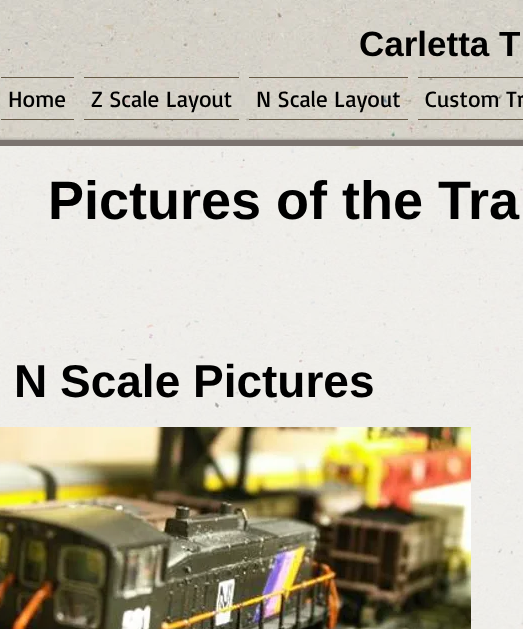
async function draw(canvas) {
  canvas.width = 523;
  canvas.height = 629;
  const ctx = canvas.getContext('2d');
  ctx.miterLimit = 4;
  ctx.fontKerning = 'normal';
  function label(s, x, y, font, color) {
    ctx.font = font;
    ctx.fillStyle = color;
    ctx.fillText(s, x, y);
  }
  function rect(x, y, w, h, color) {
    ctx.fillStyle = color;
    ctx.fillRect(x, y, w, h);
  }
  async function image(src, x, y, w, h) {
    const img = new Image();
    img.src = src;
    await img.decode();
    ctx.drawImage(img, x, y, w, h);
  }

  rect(0, 0, 523, 629, '#fff');
  await image('assets/img1.png', 0, 0, 523, 629);
  label('Carletta T', 359, 56, 'bold 35px Liberation Sans', '#000');
  rect(1, 77, 73, 1, '#645844');
  rect(1, 119, 73, 1, '#645844');
  label('Home', 8, 107, '23px Basic', '#000');
  rect(84, 77, 155, 1, '#645844');
  rect(84, 119, 155, 1, '#645844');
  label('Z Scale Layout', 91, 107, '23px Basic', '#000');
  rect(249, 77, 159, 1, '#645844');
  rect(249, 119, 159, 1, '#645844');
  label('N Scale Layout', 256, 107, '23px Basic', '#000');
  rect(418, 77, 105, 1, '#645844');
  rect(418, 119, 105, 1, '#645844');
  label('Custom Tr', 425, 107, '23px Basic', '#000');
  ctx.save();
  ctx.beginPath();
  ctx.rect(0, 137, 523, 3);
  ctx.clip();
  ctx.fillStyle = '#00000099';
  ctx.filter = 'blur(2px)';
  ctx.beginPath();
  ctx.rect(-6, 141, 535, 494);
  ctx.fill();
  ctx.filter = 'none';
  ctx.restore();
  ctx.fillStyle = '#ffffff9c';
  ctx.beginPath();
  ctx.rect(-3, 143, 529, 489);
  ctx.fill();
  ctx.strokeStyle = '#7b736f';
  ctx.lineWidth = 6;
  ctx.stroke();
  label('Pictures of the Tra', 48, 219, 'bold 54px Liberation Sans', '#000');
  label('N Scale Pictures', 14, 397, 'bold 46px Liberation Sans', '#000');
  await image('assets/img2.png', 0, 427, 471, 202);
}

draw(document.querySelector('canvas'));
